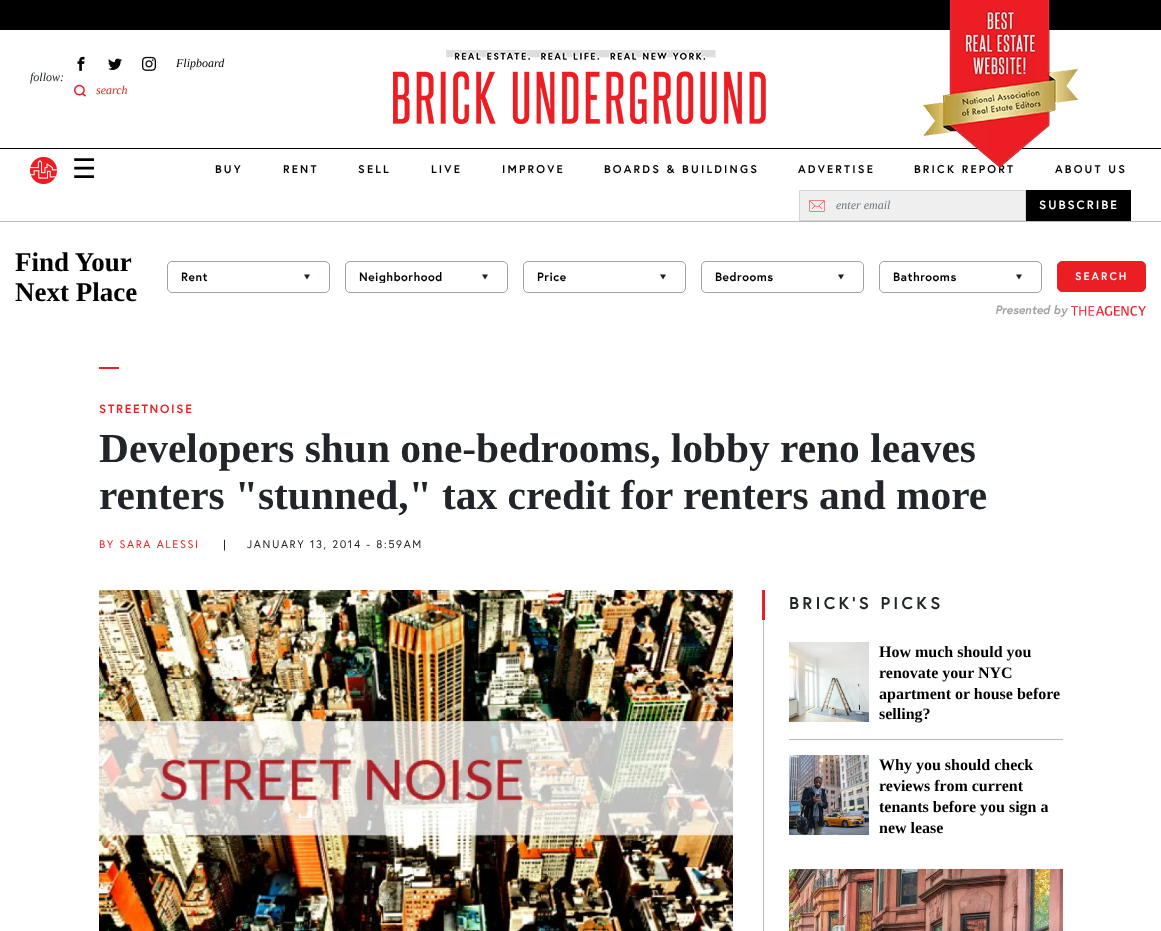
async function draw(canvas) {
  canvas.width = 1161;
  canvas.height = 931;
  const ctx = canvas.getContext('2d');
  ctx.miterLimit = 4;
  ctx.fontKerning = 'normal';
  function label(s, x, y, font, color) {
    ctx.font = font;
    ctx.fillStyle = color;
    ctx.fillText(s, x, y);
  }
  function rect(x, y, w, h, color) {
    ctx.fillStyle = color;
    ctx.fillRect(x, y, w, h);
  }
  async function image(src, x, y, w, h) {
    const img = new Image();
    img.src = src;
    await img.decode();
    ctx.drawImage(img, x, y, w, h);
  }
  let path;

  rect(0, 0, 1161, 931, '#fff');
  rect(0, 0, 1161, 30, '#000');
  label('follow:', 30, 81, 'italic 12px Liberation Serif', '#212529');
  await image('assets/img1.png', 77, 56, 8, 15);
  await image('assets/img2.png', 108, 58, 14, 12);
  await image('assets/img3.png', 142, 56, 14, 15);
  label('Flipboard', 176, 67, 'italic 12px Liberation Serif', '#000');
  await image('assets/img4.png', 74, 84, 12, 13);
  label('search', 96, 94, 'italic 12px Liberation Serif', '#eb1e24');
  await image('assets/img5.png', 393, 50, 373, 74);
  rect(0, 148, 1161, 1, '#000');
  ctx.letterSpacing = '2.2px';
  label('BRICK REPORT', 914, 173, 'bold 11.25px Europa', '#000');
  label('ABOUT US', 1055, 173, 'bold 11.25px Europa', '#000');
  await image('assets/img6.png', 923, 0, 155, 168);
  rect(0, 221, 1161, 1, '#bbb');
  await image('assets/img7.png', 30, 157, 27, 27);
  ctx.letterSpacing = '0px';
  label('☰', 72, 178, '27px DejaVu Sans', '#000');
  ctx.letterSpacing = '2.2px';
  label('BUY', 215, 173, 'bold 11.25px Europa', '#000');
  label('RENT', 283, 173, 'bold 11.25px Europa', '#000');
  label('SELL', 358, 173, 'bold 11.25px Europa', '#000');
  label('LIVE', 431, 173, 'bold 11.25px Europa', '#000');
  label('IMPROVE', 502, 173, 'bold 11.25px Europa', '#000');
  label('BOARDS & BUILDINGS', 604, 173, 'bold 11.25px Europa', '#000');
  label('ADVERTISE', 798, 173, 'bold 11.25px Europa', '#000');
  ctx.fillStyle = '#efefef';
  ctx.beginPath();
  ctx.rect(799.5, 190.5, 226, 30);
  ctx.fill();
  ctx.strokeStyle = '#ced4da';
  ctx.stroke();
  await image('assets/img8.png', 809, 200, 16, 12);
  ctx.letterSpacing = '0px';
  label('enter email', 836, 209, 'italic 12px Liberation Serif', '#6c757d');
  rect(1026, 190, 105, 31, '#000');
  ctx.letterSpacing = '2px';
  label('SUBSCRIBE', 1039, 209, 'bold 12px Europa', '#fff');
  ctx.letterSpacing = '0px';
  label('Find Your', 15, 271, 'bold 27px Liberation Serif', '#000');
  label('Next Place', 15, 301, 'bold 27px Liberation Serif', '#000');
  ctx.fillStyle = '#241f19';
  path = new Path2D('M304 274.5H310L307 279.5Z');
  ctx.fill(path);
  ctx.beginPath();
  ctx.roundRect(167.5, 261.5, 162, 31, 4.5);
  ctx.strokeStyle = '#a2a2a2';
  ctx.stroke();
  ctx.letterSpacing = '0.5px';
  label('Rent', 181, 281, 'bold 12px Europa', '#000');
  ctx.fillStyle = '#241f19';
  path = new Path2D('M482 274.5H488L485 279.5Z');
  ctx.fill(path);
  ctx.beginPath();
  ctx.roundRect(345.5, 261.5, 162, 31, 4.5);
  ctx.stroke();
  ctx.save();
  ctx.beginPath();
  ctx.rect(359, 271, 135, 12);
  ctx.clip();
  label('Neighborhood', 359, 281, 'bold 12px Europa', '#000');
  ctx.restore();
  path = new Path2D('M660 274.5H666L663 279.5Z');
  ctx.fill(path);
  ctx.beginPath();
  ctx.roundRect(523.5, 261.5, 162, 31, 4.5);
  ctx.stroke();
  label('Price', 537, 281, 'bold 12px Europa', '#000');
  ctx.fillStyle = '#241f19';
  path = new Path2D('M838 274.5H844L841 279.5Z');
  ctx.fill(path);
  ctx.beginPath();
  ctx.roundRect(701.5, 261.5, 162, 31, 4.5);
  ctx.stroke();
  label('Bedrooms', 715, 281, 'bold 12px Europa', '#000');
  ctx.fillStyle = '#241f19';
  path = new Path2D('M1016 274.5H1022L1019 279.5Z');
  ctx.fill(path);
  ctx.beginPath();
  ctx.roundRect(879.5, 261.5, 162, 31, 4.5);
  ctx.stroke();
  label('Bathrooms', 893, 281, 'bold 12px Europa', '#000');
  ctx.fillStyle = '#eb1e24';
  ctx.beginPath();
  ctx.roundRect(1057.5, 261.5, 88, 30, 4.5);
  ctx.fill();
  ctx.strokeStyle = '#eb1e24';
  ctx.stroke();
  ctx.letterSpacing = '2px';
  label('SEARCH', 1075, 280, 'bold 11px Europa', '#fff');
  ctx.letterSpacing = '0px';
  label('Presented by', 995, 314, 'italic bold 12px Europa', '#a2a2a2');
  await image('assets/img9.png', 1071, 306, 75, 10);
  rect(99, 367, 20, 2, '#eb1e24');
  ctx.letterSpacing = '1.75px';
  label('STREETNOISE', 99, 413, 'bold 12px Europa', '#eb1e24');
  ctx.letterSpacing = '0px';
  label('Developers shun one-bedrooms, lobby reno leaves', 99, 462, 'bold 41.4px Liberation Serif', '#212529');
  label('renters "stunned," tax credit for renters and more', 99, 509, 'bold 41.4px Liberation Serif', '#212529');
  ctx.letterSpacing = '1.6px';
  label('BY SARA ALESSI', 99, 548, '11px Europa', '#eb1e24');
  label('|', 223, 548, '11px Europa', '#000');
  label('JANUARY 13, 2014 - 8:59AM', 247, 548, '11px Europa', '#212529');
  await image('assets/img10.png', 99, 590, 634, 341);
  rect(763, 620, 1, 311, '#bbb');
  rect(762, 590, 3, 30, '#eb1e24');
  ctx.letterSpacing = '3.25px';
  label('BRICK’S PICKS', 789, 609, 'bold 17px Europa', '#212529');
  await image('assets/img11.png', 789, 642, 80, 80);
  ctx.letterSpacing = '0px';
  label('How much should you', 879, 657, 'bold 16px Liberation Serif', '#000');
  label('renovate your NYC', 879, 678, 'bold 16px Liberation Serif', '#000');
  label('apartment or house before', 879, 699, 'bold 16px Liberation Serif', '#000');
  label('selling?', 879, 719, 'bold 16px Liberation Serif', '#000');
  rect(789, 739, 274, 1, '#bbb');
  await image('assets/img12.png', 789, 755, 80, 80);
  label('Why you should check', 879, 770, 'bold 16px Liberation Serif', '#000');
  label('reviews from current', 879, 791, 'bold 16px Liberation Serif', '#000');
  label('tenants before you sign a', 879, 812, 'bold 16px Liberation Serif', '#000');
  label('new lease', 879, 833, 'bold 16px Liberation Serif', '#000');
  await image('assets/img13.png', 789, 869, 274, 62);
}

draw(document.querySelector('canvas'));
